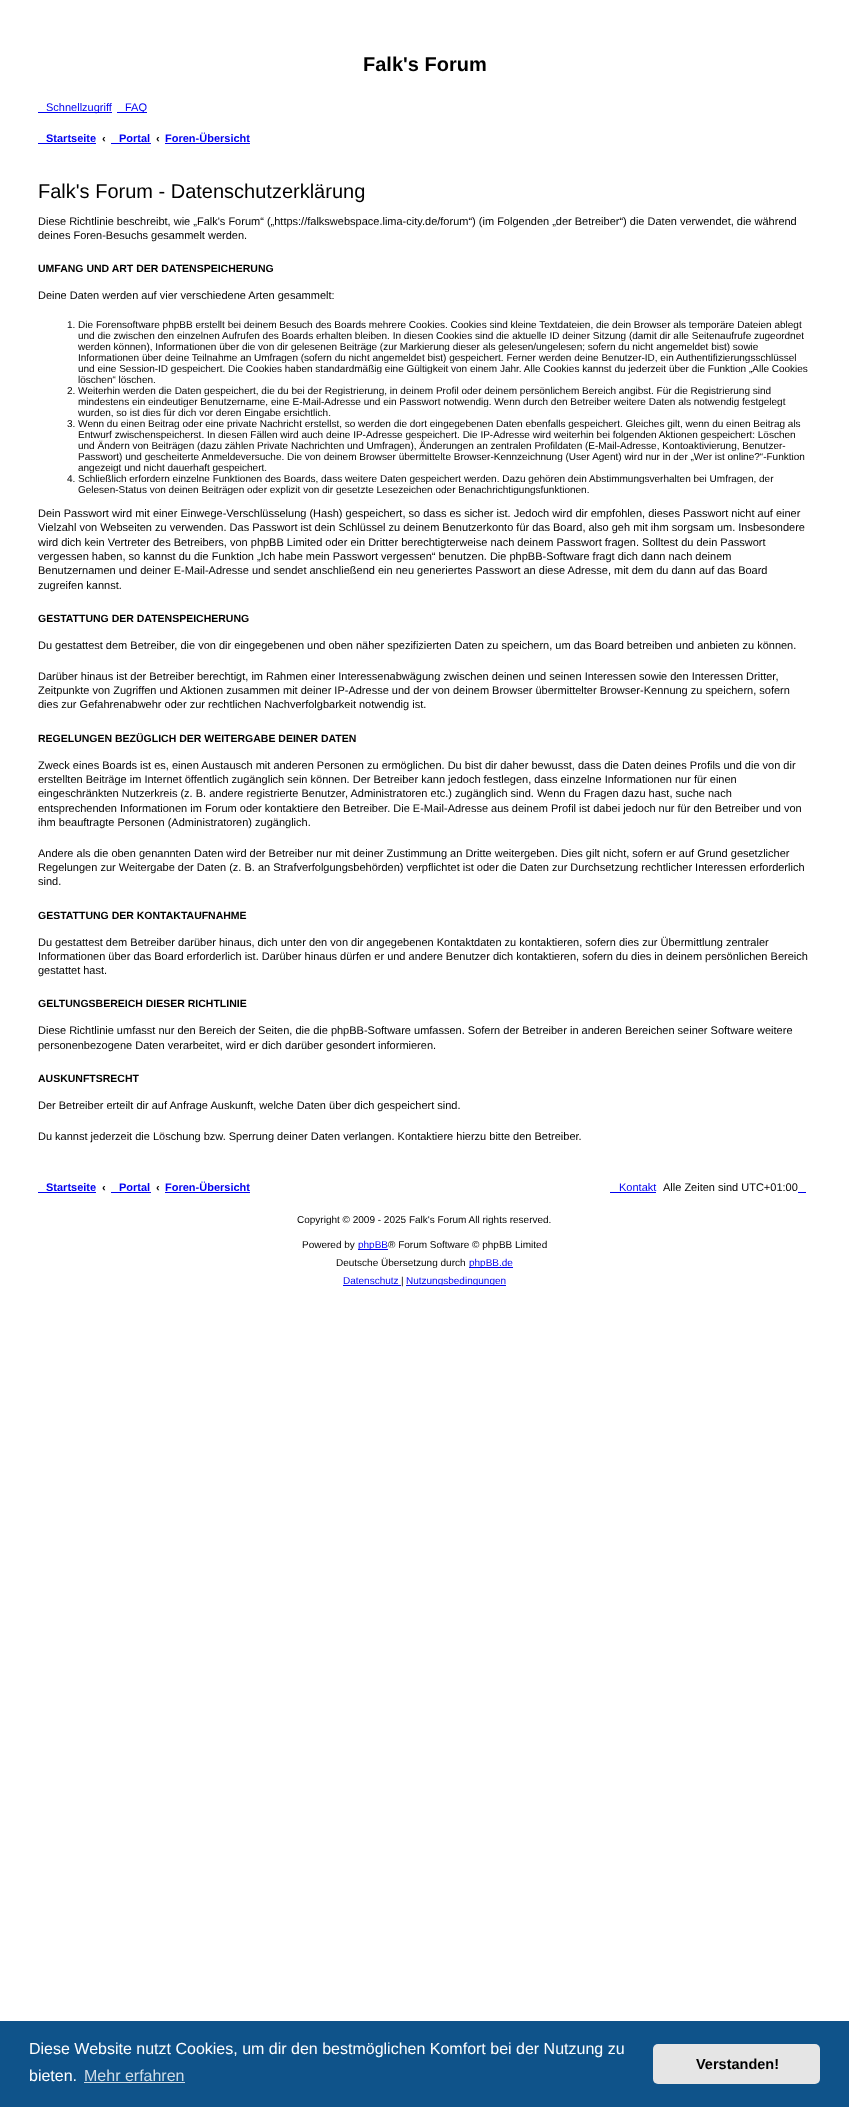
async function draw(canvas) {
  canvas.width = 849;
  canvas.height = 2107;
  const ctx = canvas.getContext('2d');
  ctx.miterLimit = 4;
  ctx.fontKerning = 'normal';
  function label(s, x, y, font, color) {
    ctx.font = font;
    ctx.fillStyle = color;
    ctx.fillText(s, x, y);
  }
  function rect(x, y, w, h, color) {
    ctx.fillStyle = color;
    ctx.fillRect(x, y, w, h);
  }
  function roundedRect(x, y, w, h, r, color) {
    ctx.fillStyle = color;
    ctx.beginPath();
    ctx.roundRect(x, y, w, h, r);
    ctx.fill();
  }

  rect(0, 0, 849, 2107, '#fff');
  label('Falk\'s Forum', 363, 71, 'bold 20px Liberation Sans', '#000');
  rect(38, 112, 74, 1, '#00e');
  label('Schnellzugriff', 46, 111, '11px Liberation Sans', '#00e');
  rect(117, 112, 30, 1, '#00e');
  label('FAQ', 125, 111, '11px Liberation Sans', '#00e');
  label('Startseite', 46, 142, 'bold 11px Liberation Sans', '#00e');
  rect(38, 143, 58, 1, '#00e');
  label('‹', 102, 142, 'bold 11px Liberation Sans', '#000');
  label('Portal', 119, 142, 'bold 11px Liberation Sans', '#00e');
  rect(111, 143, 40, 1, '#00e');
  label('‹', 156, 142, 'bold 11px Liberation Sans', '#000');
  label('Foren-Übersicht', 165, 142, 'bold 11px Liberation Sans', '#00e');
  rect(165, 143, 85, 1, '#00e');
  label('Falk\'s Forum - Datenschutzerklärung', 38, 198, '20px Liberation Sans', '#000');
  label('Diese Richtlinie beschreibt, wie „Falk\'s Forum“ („https://falkswebspace.lima-city.de/forum“) (im Folgenden „der Betreiber“) die Daten verwendet, die während', 38, 225, '11px Liberation Sans', '#000');
  label('deines Foren-Besuchs gesammelt werden.', 38, 239, '11px Liberation Sans', '#000');
  label('UMFANG UND ART DER DATENSPEICHERUNG', 38, 272, 'bold 10.5px Liberation Sans', '#000');
  label('Deine Daten werden auf vier verschiedene Arten gesammelt:', 38, 299, '11px Liberation Sans', '#000');
  label('1. Die Forensoftware phpBB erstellt bei deinem Besuch des Boards mehrere Cookies. Cookies sind kleine Textdateien, die dein Browser als temporäre Dateien ablegt', 67, 328, '10px Liberation Sans', '#000');
  label('und die zwischen den einzelnen Aufrufen des Boards erhalten bleiben. In diesen Cookies sind die aktuelle ID deiner Sitzung (damit dir alle Seitenaufrufe zugeordnet', 78, 339, '10px Liberation Sans', '#000');
  label('werden können), Informationen über die von dir gelesenen Beiträge (zur Markierung dieser als gelesen/ungelesen; sofern du nicht angemeldet bist) sowie', 78, 350, '10px Liberation Sans', '#000');
  label('Informationen über deine Teilnahme an Umfragen (sofern du nicht angemeldet bist) gespeichert. Ferner werden deine Benutzer-ID, ein Authentifizierungsschlüssel', 78, 361, '10px Liberation Sans', '#000');
  label('und eine Session-ID gespeichert. Die Cookies haben standardmäßig eine Gültigkeit von einem Jahr. Alle Cookies kannst du jederzeit über die Funktion „Alle Cookies', 78, 372, '10px Liberation Sans', '#000');
  label('löschen“ löschen.', 78, 383, '10px Liberation Sans', '#000');
  label('2. Weiterhin werden die Daten gespeichert, die du bei der Registrierung, in deinem Profil oder deinem persönlichem Bereich angibst. Für die Registrierung sind', 67, 394, '10px Liberation Sans', '#000');
  label('mindestens ein eindeutiger Benutzername, eine E-Mail-Adresse und ein Passwort notwendig. Wenn durch den Betreiber weitere Daten als notwendig festgelegt', 78, 405, '10px Liberation Sans', '#000');
  label('wurden, so ist dies für dich vor deren Eingabe ersichtlich.', 78, 416, '10px Liberation Sans', '#000');
  label('3. Wenn du einen Beitrag oder eine private Nachricht erstellst, so werden die dort eingegebenen Daten ebenfalls gespeichert. Gleiches gilt, wenn du einen Beitrag als', 67, 427, '10px Liberation Sans', '#000');
  label('Entwurf zwischenspeicherst. In diesen Fällen wird auch deine IP-Adresse gespeichert. Die IP-Adresse wird weiterhin bei folgenden Aktionen gespeichert: Löschen', 78, 438, '10px Liberation Sans', '#000');
  label('und Ändern von Beiträgen (dazu zählen Private Nachrichten und Umfragen), Änderungen an zentralen Profildaten (E-Mail-Adresse, Kontoaktivierung, Benutzer-', 78, 449, '10px Liberation Sans', '#000');
  label('Passwort) und gescheiterte Anmeldeversuche. Die von deinem Browser übermittelte Browser-Kennzeichnung (User Agent) wird nur in der „Wer ist online?“-Funktion', 78, 460, '10px Liberation Sans', '#000');
  label('angezeigt und nicht dauerhaft gespeichert.', 78, 471, '10px Liberation Sans', '#000');
  label('4. Schließlich erfordern einzelne Funktionen des Boards, dass weitere Daten gespeichert werden. Dazu gehören dein Abstimmungsverhalten bei Umfragen, der', 67, 482, '10px Liberation Sans', '#000');
  label('Gelesen-Status von deinen Beiträgen oder explizit von dir gesetzte Lesezeichen oder Benachrichtigungsfunktionen.', 78, 493, '10px Liberation Sans', '#000');
  label('Dein Passwort wird mit einer Einwege-Verschlüsselung (Hash) gespeichert, so dass es sicher ist. Jedoch wird dir empfohlen, dieses Passwort nicht auf einer', 38, 517, '11px Liberation Sans', '#000');
  label('Vielzahl von Webseiten zu verwenden. Das Passwort ist dein Schlüssel zu deinem Benutzerkonto für das Board, also geh mit ihm sorgsam um. Insbesondere', 38, 531, '11px Liberation Sans', '#000');
  label('wird dich kein Vertreter des Betreibers, von phpBB Limited oder ein Dritter berechtigterweise nach deinem Passwort fragen. Solltest du dein Passwort', 38, 546, '11px Liberation Sans', '#000');
  label('vergessen haben, so kannst du die Funktion „Ich habe mein Passwort vergessen“ benutzen. Die phpBB-Software fragt dich dann nach deinem', 38, 560, '11px Liberation Sans', '#000');
  label('Benutzernamen und deiner E-Mail-Adresse und sendet anschließend ein neu generiertes Passwort an diese Adresse, mit dem du dann auf das Board', 38, 574, '11px Liberation Sans', '#000');
  label('zugreifen kannst.', 38, 589, '11px Liberation Sans', '#000');
  label('GESTATTUNG DER DATENSPEICHERUNG', 38, 622, 'bold 10.5px Liberation Sans', '#000');
  label('Du gestattest dem Betreiber, die von dir eingegebenen und oben näher spezifizierten Daten zu speichern, um das Board betreiben und anbieten zu können.', 38, 649, '11px Liberation Sans', '#000');
  label('Darüber hinaus ist der Betreiber berechtigt, im Rahmen einer Interessenabwägung zwischen deinen und seinen Interessen sowie den Interessen Dritter,', 38, 680, '11px Liberation Sans', '#000');
  label('Zeitpunkte von Zugriffen und Aktionen zusammen mit deiner IP-Adresse und der von deinem Browser übermittelter Browser-Kennung zu speichern, sofern', 38, 694, '11px Liberation Sans', '#000');
  label('dies zur Gefahrenabwehr oder zur rechtlichen Nachverfolgbarkeit notwendig ist.', 38, 708, '11px Liberation Sans', '#000');
  label('REGELUNGEN BEZÜGLICH DER WEITERGABE DEINER DATEN', 38, 742, 'bold 10.5px Liberation Sans', '#000');
  label('Zweck eines Boards ist es, einen Austausch mit anderen Personen zu ermöglichen. Du bist dir daher bewusst, dass die Daten deines Profils und die von dir', 38, 769, '11px Liberation Sans', '#000');
  label('erstellten Beiträge im Internet öffentlich zugänglich sein können. Der Betreiber kann jedoch festlegen, dass einzelne Informationen nur für einen', 38, 783, '11px Liberation Sans', '#000');
  label('eingeschränkten Nutzerkreis (z. B. andere registrierte Benutzer, Administratoren etc.) zugänglich sind. Wenn du Fragen dazu hast, suche nach', 38, 797, '11px Liberation Sans', '#000');
  label('entsprechenden Informationen im Forum oder kontaktiere den Betreiber. Die E-Mail-Adresse aus deinem Profil ist dabei jedoch nur für den Betreiber und von', 38, 812, '11px Liberation Sans', '#000');
  label('ihm beauftragte Personen (Administratoren) zugänglich.', 38, 826, '11px Liberation Sans', '#000');
  label('Andere als die oben genannten Daten wird der Betreiber nur mit deiner Zustimmung an Dritte weitergeben. Dies gilt nicht, sofern er auf Grund gesetzlicher', 38, 857, '11px Liberation Sans', '#000');
  label('Regelungen zur Weitergabe der Daten (z. B. an Strafverfolgungsbehörden) verpflichtet ist oder die Daten zur Durchsetzung rechtlicher Interessen erforderlich', 38, 871, '11px Liberation Sans', '#000');
  label('sind.', 38, 885, '11px Liberation Sans', '#000');
  label('GESTATTUNG DER KONTAKTAUFNAHME', 38, 919, 'bold 10.5px Liberation Sans', '#000');
  label('Du gestattest dem Betreiber darüber hinaus, dich unter den von dir angegebenen Kontaktdaten zu kontaktieren, sofern dies zur Übermittlung zentraler', 38, 946, '11px Liberation Sans', '#000');
  label('Informationen über das Board erforderlich ist. Darüber hinaus dürfen er und andere Benutzer dich kontaktieren, sofern du dies in deinem persönlichen Bereich', 38, 960, '11px Liberation Sans', '#000');
  label('gestattet hast.', 38, 974, '11px Liberation Sans', '#000');
  label('GELTUNGSBEREICH DIESER RICHTLINIE', 38, 1007, 'bold 10.5px Liberation Sans', '#000');
  label('Diese Richtlinie umfasst nur den Bereich der Seiten, die die phpBB-Software umfassen. Sofern der Betreiber in anderen Bereichen seiner Software weitere', 38, 1034, '11px Liberation Sans', '#000');
  label('personenbezogene Daten verarbeitet, wird er dich darüber gesondert informieren.', 38, 1049, '11px Liberation Sans', '#000');
  label('AUSKUNFTSRECHT', 38, 1082, 'bold 10.5px Liberation Sans', '#000');
  label('Der Betreiber erteilt dir auf Anfrage Auskunft, welche Daten über dich gespeichert sind.', 38, 1109, '11px Liberation Sans', '#000');
  label('Du kannst jederzeit die Löschung bzw. Sperrung deiner Daten verlangen. Kontaktiere hierzu bitte den Betreiber.', 38, 1140, '11px Liberation Sans', '#000');
  label('Startseite', 46, 1191, 'bold 11px Liberation Sans', '#00e');
  rect(38, 1192, 58, 1, '#00e');
  label('‹', 102, 1191, 'bold 11px Liberation Sans', '#000');
  label('Portal', 119, 1191, 'bold 11px Liberation Sans', '#00e');
  rect(111, 1192, 40, 1, '#00e');
  label('‹', 156, 1191, 'bold 11px Liberation Sans', '#000');
  label('Foren-Übersicht', 165, 1191, 'bold 11px Liberation Sans', '#00e');
  rect(165, 1192, 85, 1, '#00e');
  label('Kontakt', 619, 1191, '11px Liberation Sans', '#00e');
  rect(610, 1192, 46, 1, '#00e');
  label('Alle Zeiten sind UTC+01:00', 663, 1191, '11px Liberation Sans', '#000');
  rect(798, 1192, 8, 1, '#00e');
  label('Copyright © 2009 - 2025 Falk\'s Forum All rights reserved.', 297, 1223, '10px Liberation Sans', '#000');
  label('Powered by', 302, 1248, '10px Liberation Sans', '#000');
  rect(358, 1249, 30, 1, '#00e');
  label('phpBB', 358, 1248, '10px Liberation Sans', '#00e');
  label('® Forum Software © phpBB Limited', 388, 1248, '10px Liberation Sans', '#000');
  label('Deutsche Übersetzung durch', 336, 1266, '10px Liberation Sans', '#000');
  rect(469, 1267, 44, 1, '#00e');
  label('phpBB.de', 469, 1266, '10px Liberation Sans', '#00e');
  label('Datenschutz', 343, 1284, '10px Liberation Sans', '#00e');
  rect(343, 1285, 58, 1, '#00e');
  label('|', 401, 1284, '10px Liberation Sans', '#000');
  rect(406, 1285, 100, 1, '#00e');
  label('Nutzungsbedingungen', 406, 1284, '10px Liberation Sans', '#00e');
  rect(0, 2021, 849, 86, '#0f538a');
  label('Diese Website nutzt Cookies, um dir den bestmöglichen Komfort bei der Nutzung zu', 29, 2054, '16px Liberation Sans', '#fff');
  label('bieten.', 29, 2081, '16px Liberation Sans', '#fff');
  label('Mehr erfahren', 84, 2081, '16px Liberation Sans', '#cfdde8');
  rect(84, 2082, 101, 1, '#cfdde8');
  roundedRect(653, 2044, 167, 40, 5, '#e5e5e5');
  label('Verstanden!', 696, 2069, 'bold 14.5px Liberation Sans', '#000');
}

draw(document.querySelector('canvas'));
